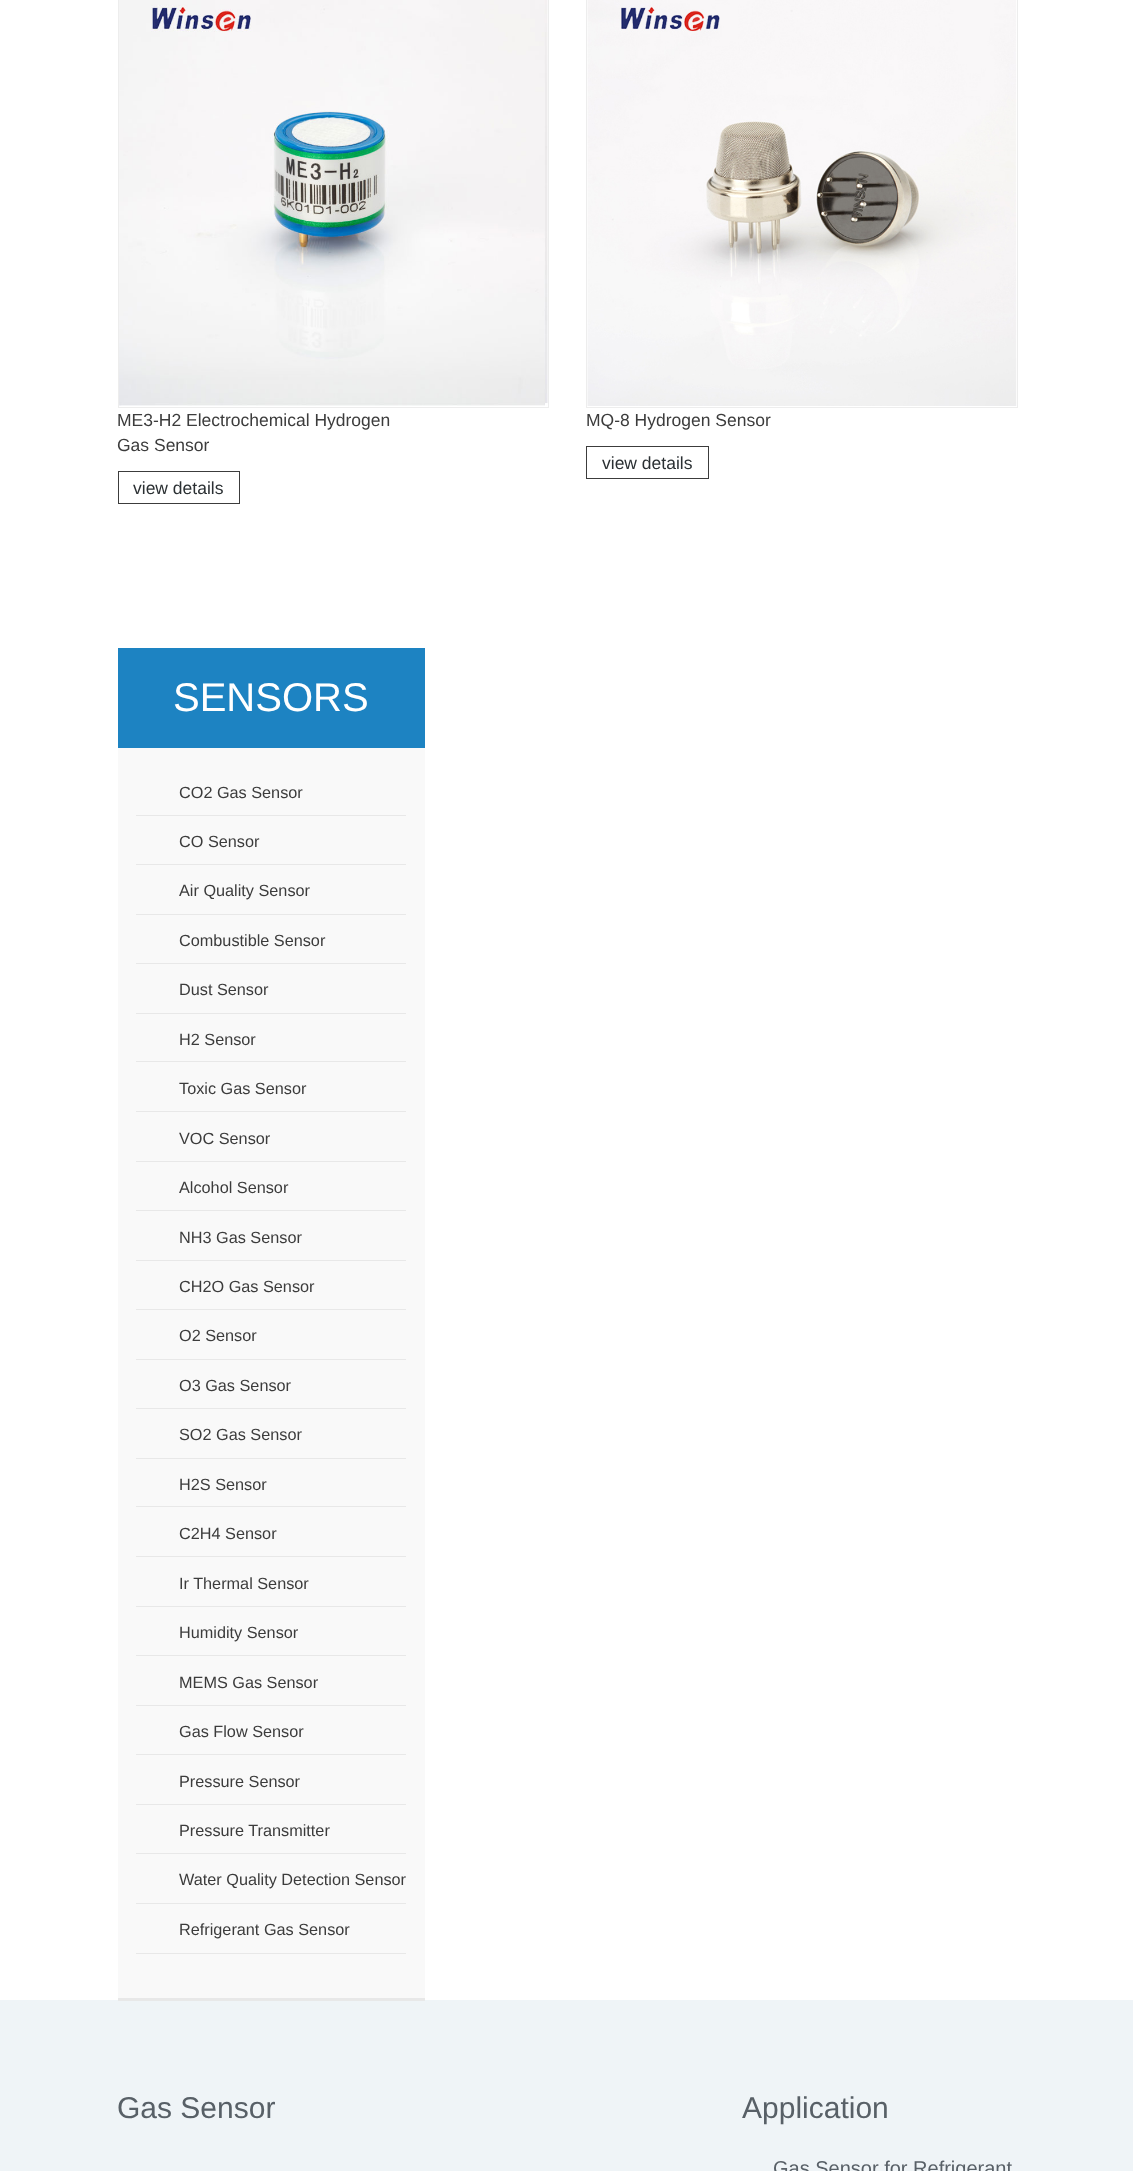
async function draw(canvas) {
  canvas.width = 1133;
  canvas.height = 2171;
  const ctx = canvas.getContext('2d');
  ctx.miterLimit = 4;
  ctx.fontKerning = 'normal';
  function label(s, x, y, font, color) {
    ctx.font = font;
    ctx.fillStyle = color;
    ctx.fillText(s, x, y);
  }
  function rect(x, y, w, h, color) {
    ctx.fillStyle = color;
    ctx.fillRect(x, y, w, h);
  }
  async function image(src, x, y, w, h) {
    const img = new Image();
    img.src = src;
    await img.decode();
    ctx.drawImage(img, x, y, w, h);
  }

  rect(0, 0, 1133, 2171, '#fff');
  ctx.strokeStyle = '#ededed';
  ctx.strokeRect(118.5, -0.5, 430, 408);
  await image('assets/img1.png', 119, 0, 429, 406);
  label('ME3-H2 Electrochemical Hydrogen', 117, 426, '17.5px Liberation Sans', '#3c3c3c');
  label('Gas Sensor', 117, 451, '17.5px Liberation Sans', '#3c3c3c');
  ctx.strokeStyle = '#3c3c3c';
  ctx.strokeRect(118.5, 471.5, 121, 32);
  label('view details', 133, 494, '17.5px Liberation Sans', '#2b3033');
  ctx.strokeStyle = '#ededed';
  ctx.strokeRect(586.5, -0.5, 431, 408);
  await image('assets/img2.png', 587, 0, 430, 406);
  label('MQ-8 Hydrogen Sensor', 586, 426, '17.5px Liberation Sans', '#3c3c3c');
  ctx.strokeStyle = '#3c3c3c';
  ctx.strokeRect(586.5, 446.5, 122, 32);
  label('view details', 602, 469, '17.5px Liberation Sans', '#2b3033');
  rect(118, 748, 307, 1250, '#f9f9f9');
  rect(0, 2000, 1133, 171, '#eff4f7');
  rect(118, 1998, 307, 3, '#e8e8e8');
  rect(118, 648, 307, 100, '#1d83c2');
  label('SENSORS', 173, 711, '40px Liberation Sans', '#fff');
  rect(136, 815, 270, 1, '#e8e8e8');
  label('CO2 Gas Sensor', 179, 798, '16.25px Liberation Sans', '#3c3c3c');
  rect(136, 864, 270, 1, '#e8e8e8');
  label('CO Sensor', 179, 847, '16.25px Liberation Sans', '#3c3c3c');
  rect(136, 914, 270, 1, '#e8e8e8');
  label('Air Quality Sensor', 179, 896, '16.25px Liberation Sans', '#3c3c3c');
  rect(136, 963, 270, 1, '#e8e8e8');
  label('Combustible Sensor', 179, 946, '16.25px Liberation Sans', '#3c3c3c');
  rect(136, 1013, 270, 1, '#e8e8e8');
  label('Dust Sensor', 179, 995, '16.25px Liberation Sans', '#3c3c3c');
  rect(136, 1061, 270, 1, '#e8e8e8');
  label('H2 Sensor', 179, 1045, '16.25px Liberation Sans', '#3c3c3c');
  rect(136, 1111, 270, 1, '#e8e8e8');
  label('Toxic Gas Sensor', 179, 1094, '16.25px Liberation Sans', '#3c3c3c');
  rect(136, 1161, 270, 1, '#e8e8e8');
  label('VOC Sensor', 179, 1144, '16.25px Liberation Sans', '#3c3c3c');
  rect(136, 1210, 270, 1, '#e8e8e8');
  label('Alcohol Sensor', 179, 1193, '16.25px Liberation Sans', '#3c3c3c');
  rect(136, 1260, 270, 1, '#e8e8e8');
  label('NH3 Gas Sensor', 179, 1243, '16.25px Liberation Sans', '#3c3c3c');
  rect(136, 1309, 270, 1, '#e8e8e8');
  label('CH2O Gas Sensor', 179, 1292, '16.25px Liberation Sans', '#3c3c3c');
  rect(136, 1359, 270, 1, '#e8e8e8');
  label('O2 Sensor', 179, 1341, '16.25px Liberation Sans', '#3c3c3c');
  rect(136, 1408, 270, 1, '#e8e8e8');
  label('O3 Gas Sensor', 179, 1391, '16.25px Liberation Sans', '#3c3c3c');
  rect(136, 1458, 270, 1, '#e8e8e8');
  label('SO2 Gas Sensor', 179, 1440, '16.25px Liberation Sans', '#3c3c3c');
  rect(136, 1506, 270, 1, '#e8e8e8');
  label('H2S Sensor', 179, 1490, '16.25px Liberation Sans', '#3c3c3c');
  rect(136, 1556, 270, 1, '#e8e8e8');
  label('C2H4 Sensor', 179, 1539, '16.25px Liberation Sans', '#3c3c3c');
  rect(136, 1606, 270, 1, '#e8e8e8');
  label('Ir Thermal Sensor', 179, 1589, '16.25px Liberation Sans', '#3c3c3c');
  rect(136, 1655, 270, 1, '#e8e8e8');
  label('Humidity Sensor', 179, 1638, '16.25px Liberation Sans', '#3c3c3c');
  rect(136, 1705, 270, 1, '#e8e8e8');
  label('MEMS Gas Sensor', 179, 1688, '16.25px Liberation Sans', '#3c3c3c');
  rect(136, 1754, 270, 1, '#e8e8e8');
  label('Gas Flow Sensor', 179, 1737, '16.25px Liberation Sans', '#3c3c3c');
  rect(136, 1804, 270, 1, '#e8e8e8');
  label('Pressure Sensor', 179, 1787, '16.25px Liberation Sans', '#3c3c3c');
  rect(136, 1853, 270, 1, '#e8e8e8');
  label('Pressure Transmitter', 179, 1836, '16.25px Liberation Sans', '#3c3c3c');
  rect(136, 1903, 270, 1, '#e8e8e8');
  label('Water Quality Detection Sensor', 179, 1885, '16.25px Liberation Sans', '#3c3c3c');
  rect(136, 1953, 270, 1, '#e8e8e8');
  label('Refrigerant Gas Sensor', 179, 1935, '16.25px Liberation Sans', '#3c3c3c');
  label('Gas Sensor', 117, 2118, '30px Liberation Sans', '#586067');
  label('Application', 742, 2118, '30px Liberation Sans', '#586067');
  label('Gas Sensor for Refrigerant', 773, 2175, '20px Liberation Sans', '#586067');
}

draw(document.querySelector('canvas'));
